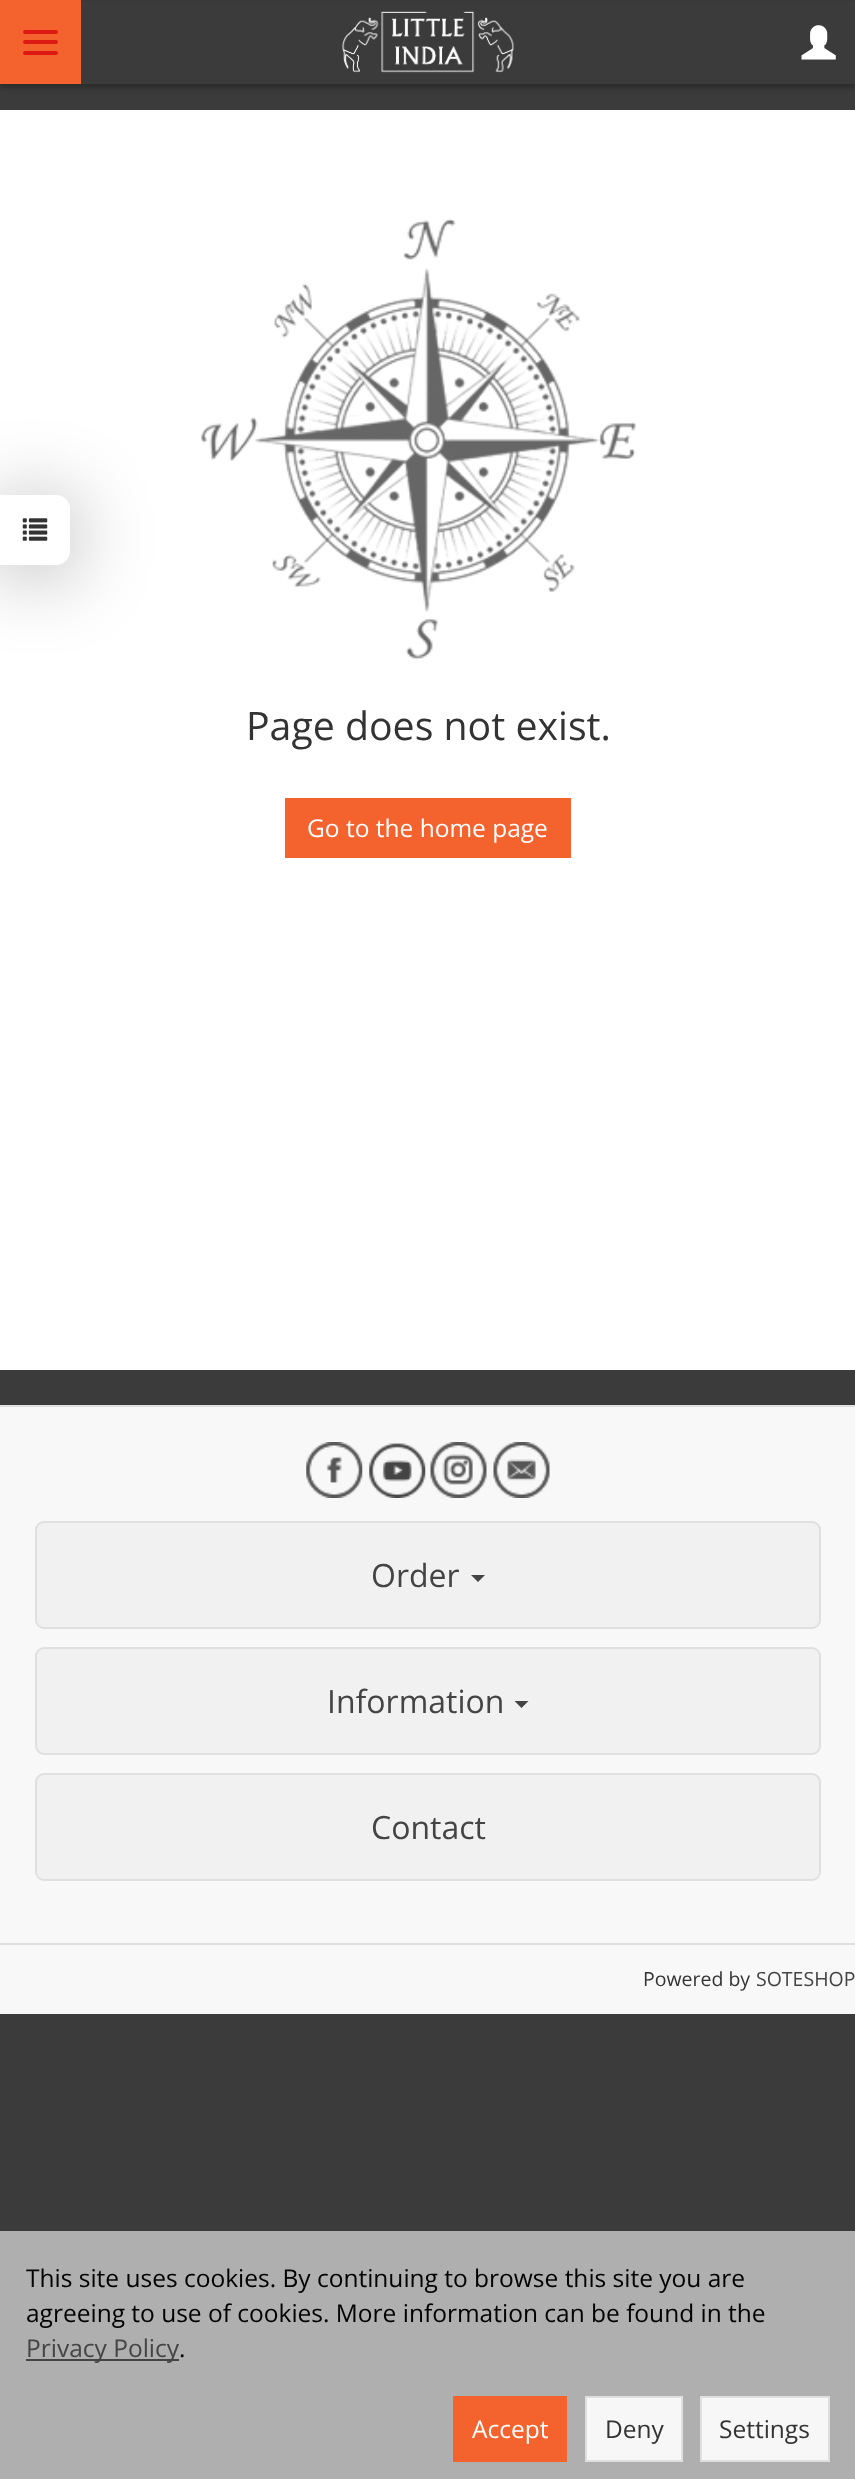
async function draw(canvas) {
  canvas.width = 855;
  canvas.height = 2479;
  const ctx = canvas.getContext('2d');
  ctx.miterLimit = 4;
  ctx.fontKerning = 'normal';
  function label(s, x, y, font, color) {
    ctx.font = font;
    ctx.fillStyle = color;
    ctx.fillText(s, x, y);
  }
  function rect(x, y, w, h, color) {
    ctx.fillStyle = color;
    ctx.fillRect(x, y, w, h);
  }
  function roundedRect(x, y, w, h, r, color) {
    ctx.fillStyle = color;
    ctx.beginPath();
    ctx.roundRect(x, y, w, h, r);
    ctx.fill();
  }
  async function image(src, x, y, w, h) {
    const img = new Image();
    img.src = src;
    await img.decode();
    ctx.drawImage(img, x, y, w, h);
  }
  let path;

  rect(0, 0, 855, 2479, '#3b3b3b');
  ctx.fillStyle = '#00000040';
  ctx.filter = 'blur(2.5px)';
  ctx.beginPath();
  ctx.rect(0, 4, 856, 84);
  ctx.fill();
  ctx.filter = 'none';
  rect(81, 2, 774, 82, '#3b3b3b');
  rect(0, 0, 81, 84, '#f4622e');
  roundedRect(23, 30, 35, 4, 2, '#dc1912');
  roundedRect(23, 40, 35, 4, 2, '#dc1912');
  roundedRect(23, 51, 35, 4, 2, '#dc1912');
  await image('assets/img1.png', 342, 11, 172, 62);
  await image('assets/img2.png', 801, 25, 35, 35);
  rect(0, 110, 855, 1260, '#fff');
  ctx.fillStyle = '#00000059';
  ctx.filter = 'blur(39.5px)';
  ctx.beginPath();
  ctx.roundRect(0, 502, 70, 70, 14);
  ctx.fill();
  ctx.filter = 'none';
  ctx.fillStyle = '#fff';
  ctx.beginPath();
  ctx.roundRect(0, 495, 70, 70, [0, 14, 14, 0]);
  ctx.fill();
  await image('assets/img3.png', 22, 518, 26, 23);
  await image('assets/img4.png', 200, 218, 436, 442);
  label('Page does not exist.', 246, 740, '39.25px Open Sans', '#333');
  rect(285, 798, 286, 60, '#f4622e');
  label('Go to the home page', 307, 837, '24.5px Open Sans', '#fff');
  rect(0, 1407, 855, 607, '#f8f8f8');
  rect(0, 1405, 855, 2, '#e0e0e0');
  await image('assets/img5.png', 306, 1442, 57, 56);
  await image('assets/img6.png', 369, 1443, 57, 55);
  await image('assets/img7.png', 430, 1442, 57, 56);
  await image('assets/img8.png', 493, 1442, 57, 56);
  roundedRect(35, 1521, 786, 108, 9, '#f1f1f1');
  ctx.beginPath();
  ctx.roundRect(36, 1522, 784, 106, 8);
  ctx.strokeStyle = '#00000012';
  ctx.lineWidth = 2;
  ctx.stroke();
  label('Order', 371, 1587, '32px Open Sans', '#444');
  path = new Path2D('M471 1575H485L478 1582Z');
  ctx.fill(path);
  roundedRect(35, 1647, 786, 108, 9, '#f1f1f1');
  ctx.beginPath();
  ctx.roundRect(36, 1648, 784, 106, 8);
  ctx.stroke();
  label('Information', 327, 1713, '32px Open Sans', '#444');
  path = new Path2D('M514.5 1701H528.5L521.5 1708Z');
  ctx.fill(path);
  roundedRect(35, 1773, 786, 108, 9, '#f1f1f1');
  ctx.beginPath();
  ctx.roundRect(36, 1774, 784, 106, 8);
  ctx.stroke();
  label('Contact', 371, 1839, '32px Open Sans', '#444');
  rect(0, 1943, 855, 2, '#dedede');
  label('Powered by', 643, 1986, '19.5px Open Sans', '#333');
  label('SOTESHOP', 756, 1986, '19.5px Open Sans', '#444');
  rect(0, 2231, 855, 248, '#afafaf');
  label('This site uses cookies. By continuing to browse this site you are', 26, 2287, '24.5px Open Sans', '#000');
  label('agreeing to use of cookies. More information can be found in the', 26, 2322, '24.5px Open Sans', '#000');
  rect(26, 2359, 153, 2, '#444');
  label('Privacy Policy', 26, 2357, '24.5px Open Sans', '#444');
  label('.', 179, 2357, '24.5px Open Sans', '#000');
  rect(453, 2396, 114, 66, '#f4622e');
  label('Accept', 472, 2438, '24.5px Open Sans', '#fff');
  ctx.fillStyle = '#f7f7f7';
  ctx.beginPath();
  ctx.rect(586, 2397, 96, 64);
  ctx.fill();
  ctx.strokeStyle = '#dfdfdf';
  ctx.stroke();
  label('Deny', 605, 2438, '24.5px Open Sans', '#333');
  ctx.fillStyle = '#f7f7f7';
  ctx.beginPath();
  ctx.rect(701, 2397, 128, 64);
  ctx.fill();
  ctx.stroke();
  label('Settings', 719, 2438, '24.5px Open Sans', '#333');
}

draw(document.querySelector('canvas'));
